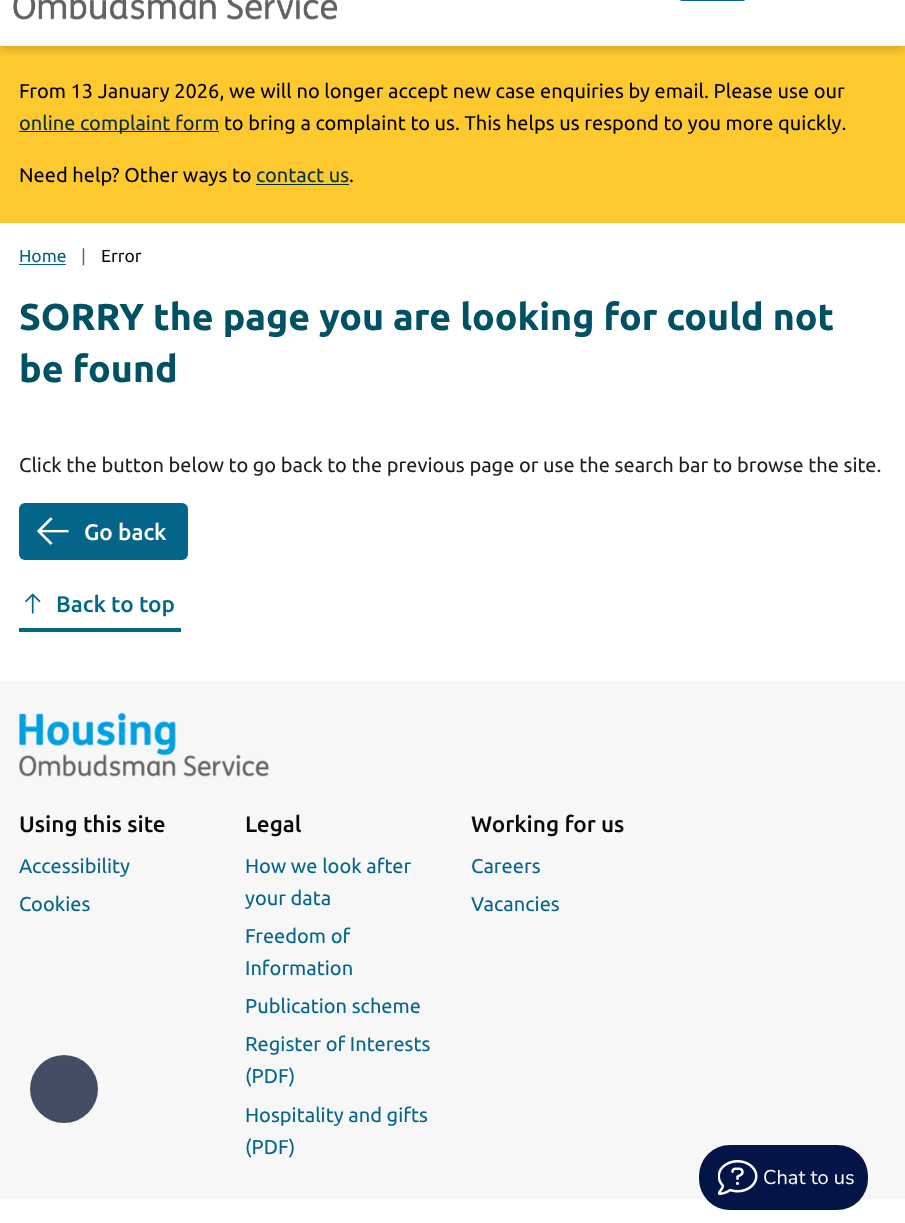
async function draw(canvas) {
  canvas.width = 905;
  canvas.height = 1223;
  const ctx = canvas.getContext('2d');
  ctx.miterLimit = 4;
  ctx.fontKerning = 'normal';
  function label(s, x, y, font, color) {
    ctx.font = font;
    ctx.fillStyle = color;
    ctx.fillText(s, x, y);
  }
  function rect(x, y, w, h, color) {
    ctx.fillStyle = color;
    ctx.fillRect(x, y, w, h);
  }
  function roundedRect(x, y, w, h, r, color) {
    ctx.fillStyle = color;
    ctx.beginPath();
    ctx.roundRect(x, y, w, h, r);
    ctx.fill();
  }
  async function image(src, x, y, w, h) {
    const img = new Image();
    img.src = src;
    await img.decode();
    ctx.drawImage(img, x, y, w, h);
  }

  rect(0, 0, 905, 1223, '#fff');
  rect(0, 46, 905, 177, '#fec92f');
  ctx.save();
  ctx.beginPath();
  ctx.rect(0, 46, 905, 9);
  ctx.clip();
  ctx.fillStyle = '#00000029';
  ctx.filter = 'blur(4px)';
  ctx.beginPath();
  ctx.rect(0, -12, 905, 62);
  ctx.fill();
  ctx.filter = 'none';
  ctx.restore();
  roundedRect(679, -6, 67, 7, 6, '#04658b');
  await image('assets/img1.png', 13, 0, 324, 20);
  label('From 13 January 2026, we will no longer accept new case enquiries by email. Please use our', 19, 98, '20px Ubuntu', '#000');
  rect(19, 131, 200, 1, '#022f41');
  label('online complaint form', 19, 130, '20px Ubuntu', '#022f41');
  label('to bring a complaint to us. This helps us respond to you more quickly.', 224, 130, '20px Ubuntu', '#000');
  label('Need help? Other ways to', 19, 182, '20px Ubuntu', '#000');
  label('contact us', 256, 182, '20px Ubuntu', '#022f41');
  rect(256, 184, 93, 1, '#022f41');
  label('.', 349, 182, '20px Ubuntu', '#000');
  label('Home', 19, 262, '17.5px Ubuntu', '#04658b');
  rect(19, 264, 47, 1, '#04658b');
  label('|', 81, 262, '17.5px Ubuntu', '#636466');
  label('Error', 101, 262, '17.5px Ubuntu', '#0a0a0a');
  label('SORRY the page you are looking for could not', 19, 330, 'bold 37.5px Ubuntu', '#005164');
  label('be found', 19, 382, 'bold 37.5px Ubuntu', '#005164');
  label('Click the button below to go back to the previous page or use the search bar to browse the site.', 19, 472, '20px Ubuntu', '#1e1e1e');
  roundedRect(19, 503, 169, 57, 6, '#04658b');
  await image('assets/img2.png', 36, 517, 33, 28);
  label('Go back', 84, 540, '500 22.5px Ubuntu', '#fff');
  rect(19, 628, 162, 4, '#006983');
  await image('assets/img3.png', 25, 593, 16, 21);
  label('Back to top', 56, 612, '500 22.5px Ubuntu', '#006983');
  rect(0, 681, 905, 518, '#f7f7f7');
  roundedRect(699, 1145, 169, 65, 31, '#031447');
  await image('assets/img4.png', 718, 1160, 40, 35);
  label('Chat to us', 763, 1184, '20px Nunito', '#fff');
  await image('assets/img5.png', 19, 712, 250, 65);
  label('Using this site', 19, 832, '500 22.5px Ubuntu', '#0a0a0a');
  label('Accessibility', 19, 873, '20px Ubuntu', '#04658b');
  label('Cookies', 19, 911, '20px Ubuntu', '#04658b');
  label('Legal', 245, 832, '500 22.5px Ubuntu', '#0a0a0a');
  label('How we look after', 245, 873, '20px Ubuntu', '#04658b');
  label('your data', 245, 905, '20px Ubuntu', '#04658b');
  label('Freedom of', 245, 943, '20px Ubuntu', '#04658b');
  label('Information', 245, 975, '20px Ubuntu', '#04658b');
  label('Publication scheme', 245, 1013, '20px Ubuntu', '#04658b');
  label('Register of Interests', 245, 1051, '20px Ubuntu', '#04658b');
  label('(PDF)', 245, 1083, '20px Ubuntu', '#04658b');
  label('Hospitality and gifts', 245, 1122, '20px Ubuntu', '#04658b');
  label('(PDF)', 245, 1154, '20px Ubuntu', '#04658b');
  label('Working for us', 471, 832, '500 22.5px Ubuntu', '#0a0a0a');
  label('Careers', 471, 873, '20px Ubuntu', '#04658b');
  label('Vacancies', 471, 911, '20px Ubuntu', '#04658b');
  ctx.fillStyle = '#434e65';
  ctx.beginPath();
  ctx.arc(64, 1089, 34, 0, 2 * Math.PI);
  ctx.fill();
}

draw(document.querySelector('canvas'));
